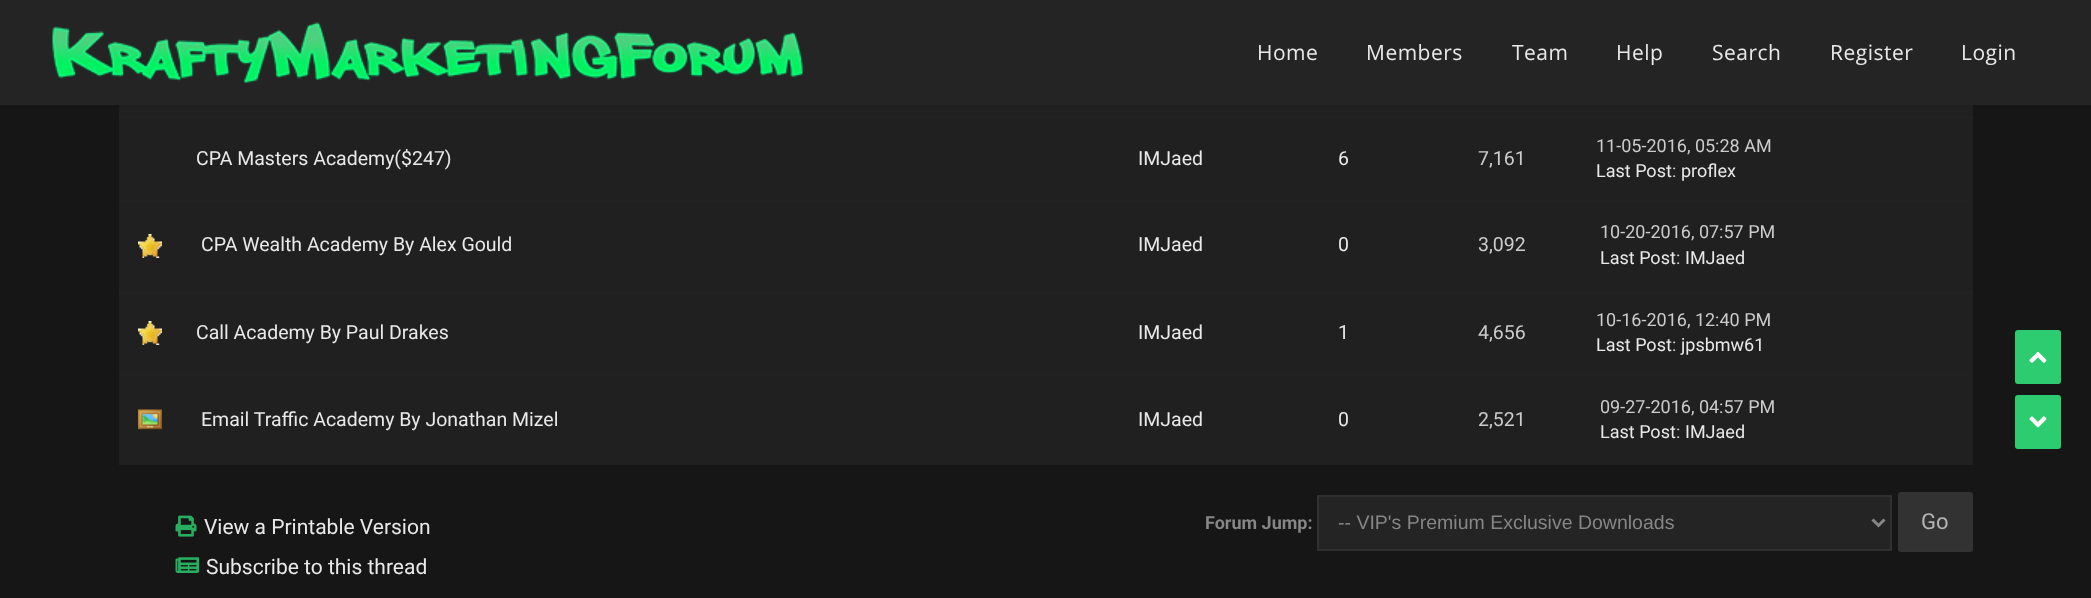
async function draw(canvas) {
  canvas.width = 2091;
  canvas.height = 598;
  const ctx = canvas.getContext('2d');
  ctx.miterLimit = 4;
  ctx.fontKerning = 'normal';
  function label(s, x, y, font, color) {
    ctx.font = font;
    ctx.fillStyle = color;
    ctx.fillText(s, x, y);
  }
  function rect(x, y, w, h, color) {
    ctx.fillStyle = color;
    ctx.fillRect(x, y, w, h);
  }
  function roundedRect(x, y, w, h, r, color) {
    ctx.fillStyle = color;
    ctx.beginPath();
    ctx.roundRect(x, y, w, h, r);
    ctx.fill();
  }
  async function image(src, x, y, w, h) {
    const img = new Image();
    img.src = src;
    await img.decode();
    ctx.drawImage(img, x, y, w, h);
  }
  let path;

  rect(0, 0, 2091, 598, '#161616');
  rect(0, 0, 2091, 105, '#242424');
  await image('assets/img1.png', 52, 22, 751, 61);
  ctx.letterSpacing = '0.5px';
  label('Home', 1257, 60, '21px Open Sans', '#e9e9e9');
  label('Members', 1366, 60, '21px Open Sans', '#e9e9e9');
  label('Team', 1512, 60, '21px Open Sans', '#e9e9e9');
  label('Help', 1616, 60, '21px Open Sans', '#e9e9e9');
  label('Search', 1712, 60, '21px Open Sans', '#e9e9e9');
  label('Register', 1830, 60, '21px Open Sans', '#e9e9e9');
  label('Login', 1961, 60, '21px Open Sans', '#e9e9e9');
  rect(119, 105, 1854, 11, '#202020');
  rect(119, 116, 1854, 1, '#222');
  rect(119, 119, 1854, 81, '#202020');
  rect(119, 117, 1854, 2, '#222');
  rect(119, 200, 1854, 1, '#222');
  ctx.letterSpacing = '0px';
  label('CPA Masters Academy($247)', 196, 165, '19.5px Roboto', '#e9e9e9');
  label('IMJaed', 1138, 165, '19.5px Roboto', '#e9e9e9');
  label('6', 1338, 165, '19.5px Roboto', '#e9e9e9');
  label('7,161', 1478, 165, '19.5px Roboto', '#ccc');
  label('11-05-2016, 05:28 AM', 1596, 152, '18px Roboto', '#ccc');
  label('Last Post', 1596, 177, '18px Roboto', '#e9e9e9');
  label(':', 1672, 177, '18px Roboto', '#ccc');
  label('proflex', 1681, 177, '18px Roboto', '#e9e9e9');
  rect(119, 201, 1854, 90, '#202020');
  rect(119, 291, 1854, 2, '#222');
  await image('assets/img2.png', 138, 234, 24, 24);
  label('CPA Wealth Academy By Alex Gould', 201, 251, '19.5px Roboto', '#e9e9e9');
  label('IMJaed', 1138, 251, '19.5px Roboto', '#e9e9e9');
  label('0', 1338, 251, '19.5px Roboto', '#e9e9e9');
  label('3,092', 1478, 251, '19.5px Roboto', '#ccc');
  label('10-20-2016, 07:57 PM', 1600, 238, '18px Roboto', '#ccc');
  label('Last Post', 1600, 264, '18px Roboto', '#e9e9e9');
  label(':', 1676, 264, '18px Roboto', '#ccc');
  label('IMJaed', 1685, 264, '18px Roboto', '#e9e9e9');
  rect(119, 295, 1854, 79, '#202020');
  rect(119, 293, 1854, 2, '#222');
  rect(119, 374, 1854, 1, '#222');
  await image('assets/img2.png', 138, 321, 24, 24);
  label('Call Academy By Paul Drakes', 196, 339, '19.5px Roboto', '#e9e9e9');
  label('IMJaed', 1138, 339, '19.5px Roboto', '#e9e9e9');
  label('1', 1338, 339, '19.5px Roboto', '#e9e9e9');
  label('4,656', 1478, 339, '19.5px Roboto', '#ccc');
  label('10-16-2016, 12:40 PM', 1596, 326, '18px Roboto', '#ccc');
  label('Last Post', 1596, 351, '18px Roboto', '#e9e9e9');
  label(':', 1672, 351, '18px Roboto', '#ccc');
  label('jpsbmw61', 1681, 351, '18px Roboto', '#e9e9e9');
  rect(119, 375, 1854, 90, '#202020');
  await image('assets/img3.png', 138, 409, 24, 21);
  label('Email Traffic Academy By Jonathan Mizel', 201, 426, '19.5px Roboto', '#e9e9e9');
  label('IMJaed', 1138, 426, '19.5px Roboto', '#e9e9e9');
  label('0', 1338, 426, '19.5px Roboto', '#e9e9e9');
  label('2,521', 1478, 426, '19.5px Roboto', '#ccc');
  label('09-27-2016, 04:57 PM', 1600, 413, '18px Roboto', '#ccc');
  label('Last Post', 1600, 438, '18px Roboto', '#e9e9e9');
  label(':', 1676, 438, '18px Roboto', '#ccc');
  label('IMJaed', 1685, 438, '18px Roboto', '#e9e9e9');
  await image('assets/img4.png', 175, 515, 22, 22);
  label('View a Printable Version', 204, 534, '21px Roboto', '#e9e9e9');
  await image('assets/img5.png', 175, 557, 25, 16);
  label('Subscribe to this thread', 206, 574, '21px Roboto', '#e9e9e9');
  label('Forum Jump:', 1205, 529, 'bold 18px Roboto', '#868686');
  ctx.fillStyle = '#242424';
  ctx.beginPath();
  ctx.rect(1318, 496, 573, 54);
  ctx.fill();
  ctx.strokeStyle = '#303030';
  ctx.lineWidth = 2;
  ctx.stroke();
  path = new Path2D('M1872.5 519.5L1878.5 525.5L1884.5 519.5');
  ctx.strokeStyle = '#878787';
  ctx.lineWidth = 3;
  ctx.stroke(path);
  label('-- VIP\'s Premium Exclusive Downloads', 1338, 529, '19.5px Liberation Sans', '#868686');
  ctx.fillStyle = '#323232';
  ctx.beginPath();
  ctx.roundRect(1899, 493, 73, 58, 2);
  ctx.fill();
  ctx.strokeStyle = '#333';
  ctx.lineWidth = 2;
  ctx.stroke();
  label('Go', 1921, 529, '22px Roboto', '#b3b3b3');
  roundedRect(2015, 330, 46, 54, 3, '#2ecc71');
  await image('assets/img6.png', 2029, 352, 18, 11);
  roundedRect(2015, 395, 46, 54, 3, '#2ecc71');
  await image('assets/img7.png', 2029, 416, 18, 12);
}

draw(document.querySelector('canvas'));
